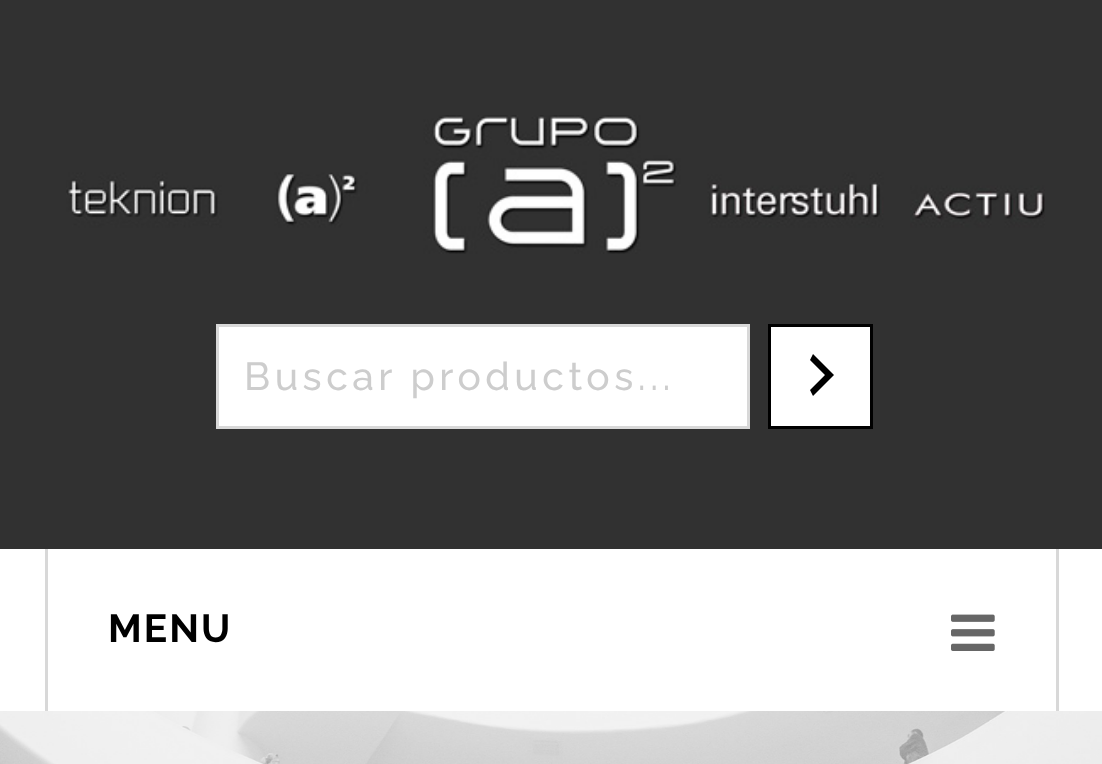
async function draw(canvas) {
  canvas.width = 1102;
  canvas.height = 764;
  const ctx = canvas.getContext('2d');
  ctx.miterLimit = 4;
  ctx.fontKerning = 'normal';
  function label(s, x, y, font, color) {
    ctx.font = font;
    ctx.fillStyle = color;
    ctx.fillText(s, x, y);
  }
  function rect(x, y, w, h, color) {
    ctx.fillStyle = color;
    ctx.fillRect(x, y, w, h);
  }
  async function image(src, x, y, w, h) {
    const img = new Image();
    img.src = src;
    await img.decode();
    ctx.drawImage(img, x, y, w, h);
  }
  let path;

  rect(0, 0, 1102, 764, '#fff');
  rect(0, 0, 1102, 549, '#313131');
  await image('assets/img1.png', 66, 115, 979, 139);
  ctx.fillStyle = '#fff';
  ctx.beginPath();
  ctx.rect(217.5, 325.5, 531, 102);
  ctx.fill();
  ctx.strokeStyle = '#d8d8d8';
  ctx.lineWidth = 3;
  ctx.stroke();
  ctx.letterSpacing = '4.5px';
  label('Buscar productos...', 244, 390, '500 39px Raleway', '#cdcdcd');
  ctx.fillStyle = '#fff';
  ctx.beginPath();
  ctx.rect(769.5, 325.5, 102, 102);
  ctx.fill();
  ctx.strokeStyle = '#000';
  ctx.stroke();
  ctx.fillStyle = '#000';
  path = new Path2D('M810 390L825 375L810 360L813 354L834 375L813 396Z');
  ctx.fill(path);
  rect(1056, 549, 3, 162, '#d8d8d8');
  rect(45, 549, 3, 162, '#d8d8d8');
  ctx.letterSpacing = '2px';
  label('MENU', 108, 642, 'bold 39px Raleway', '#000');
  await image('assets/img2.png', 951, 614, 44, 37);
  await image('assets/img3.png', 0, 711, 1102, 53);
}

draw(document.querySelector('canvas'));
